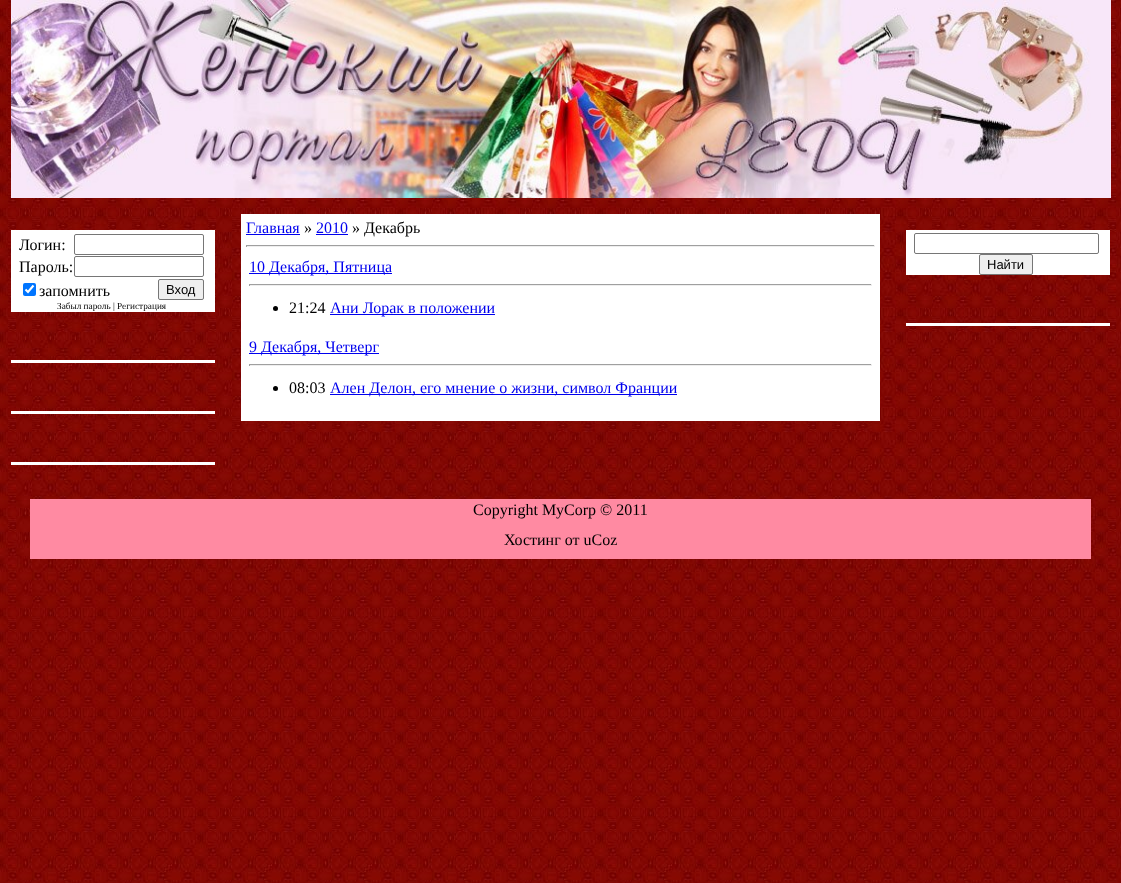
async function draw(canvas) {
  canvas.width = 1121;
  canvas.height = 883;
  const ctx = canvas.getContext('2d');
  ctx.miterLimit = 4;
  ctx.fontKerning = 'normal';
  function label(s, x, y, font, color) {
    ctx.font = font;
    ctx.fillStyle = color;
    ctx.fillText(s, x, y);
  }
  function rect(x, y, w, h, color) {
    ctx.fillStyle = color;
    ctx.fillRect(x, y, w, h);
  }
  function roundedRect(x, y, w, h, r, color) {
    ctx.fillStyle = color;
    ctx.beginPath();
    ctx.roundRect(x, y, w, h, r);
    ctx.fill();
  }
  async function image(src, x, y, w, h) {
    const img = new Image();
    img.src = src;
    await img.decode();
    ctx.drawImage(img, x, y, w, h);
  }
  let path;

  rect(0, 0, 1121, 883, '#fff');
  await image('assets/img1.png', 0, 0, 1121, 883);
  await image('assets/img2.png', 11, 0, 1100, 198);
  rect(11, 230, 204, 82, '#fff');
  label('Логин:', 19, 250, '16px Liberation Serif', '#000');
  ctx.beginPath();
  ctx.roundRect(74.5, 234.5, 129, 20, 1.5);
  ctx.strokeStyle = '#767676';
  ctx.stroke();
  label('Пароль:', 19, 272, '16px Liberation Serif', '#000');
  ctx.beginPath();
  ctx.roundRect(74.5, 256.5, 129, 20, 1.5);
  ctx.stroke();
  roundedRect(23, 283, 13, 13, 2, '#0075ff');
  path = new Path2D('M25.5 289.5L28 292L33.5 285.5');
  ctx.strokeStyle = '#fff';
  ctx.lineWidth = 2.1;
  ctx.stroke(path);
  label('запомнить', 39, 296, '16px Liberation Serif', '#000');
  ctx.fillStyle = '#efefef';
  ctx.beginPath();
  ctx.roundRect(158.5, 279.5, 45, 20, 1.5);
  ctx.fill();
  ctx.strokeStyle = '#767676';
  ctx.lineWidth = 1;
  ctx.stroke();
  label('Вход', 166, 294, '13px Liberation Sans', '#000');
  label('Забыл пароль | Регистрация', 57, 309, '9.25px Liberation Serif', '#000');
  rect(11, 360, 204, 3, '#fff');
  rect(11, 411, 204, 3, '#fff');
  rect(11, 462, 204, 3, '#fff');
  rect(241, 214, 639, 207, '#fff');
  label('Главная', 246, 233, '16px Liberation Serif', '#00e');
  rect(246, 234, 54, 1, '#00e');
  label('»', 304, 233, '16px Liberation Serif', '#000');
  label('2010', 316, 233, '16px Liberation Serif', '#00e');
  rect(316, 234, 32, 1, '#00e');
  label('» Декабрь', 352, 233, '16px Liberation Serif', '#000');
  rect(246, 245, 629, 1, '#9f9f9f');
  rect(874, 245, 1, 2, '#eee');
  rect(246, 246, 629, 1, '#eee');
  rect(246, 245, 1, 2, '#9f9f9f');
  rect(249, 273, 143, 1, '#00e');
  label('10 Декабря, Пятница', 249, 272, '16px Liberation Serif', '#00e');
  rect(249, 284, 623, 1, '#9f9f9f');
  rect(871, 284, 1, 2, '#eee');
  rect(249, 285, 623, 1, '#eee');
  rect(249, 284, 1, 2, '#9f9f9f');
  ctx.fillStyle = '#000';
  ctx.beginPath();
  ctx.arc(275.5, 308.5, 2.5, 0, 2 * Math.PI);
  ctx.fill();
  label('21:24', 289, 313, '16px Liberation Serif', '#000');
  rect(330, 314, 165, 1, '#00e');
  label('Ани Лорак в положении', 330, 313, '16px Liberation Serif', '#00e');
  rect(249, 353, 130, 1, '#00e');
  label('9 Декабря, Четверг', 249, 352, '16px Liberation Serif', '#00e');
  rect(249, 364, 623, 1, '#9f9f9f');
  rect(871, 364, 1, 2, '#eee');
  rect(249, 365, 623, 1, '#eee');
  rect(249, 364, 1, 2, '#9f9f9f');
  ctx.fillStyle = '#000';
  ctx.beginPath();
  ctx.arc(275.5, 388.5, 2.5, 0, 2 * Math.PI);
  ctx.fill();
  label('08:03', 289, 393, '16px Liberation Serif', '#000');
  rect(330, 394, 347, 1, '#00e');
  label('Ален Делон, его мнение о жизни, символ Франции', 330, 393, '16px Liberation Serif', '#00e');
  rect(906, 230, 204, 45, '#fff');
  ctx.beginPath();
  ctx.roundRect(914.5, 233.5, 184, 20, 1.5);
  ctx.stroke();
  ctx.fillStyle = '#efefef';
  ctx.beginPath();
  ctx.roundRect(979.5, 254.5, 53, 20, 1.5);
  ctx.fill();
  ctx.stroke();
  label('Найти', 987, 269, '13px Liberation Sans', '#000');
  rect(906, 323, 204, 3, '#fff');
  rect(30, 499, 1061, 60, '#ff8aa2');
  label('Copyright MyCorp © 2011', 473, 515, '16px Liberation Serif', '#000');
  label('Хостинг от uCoz', 504, 545, '16px Liberation Serif', '#000');
}

draw(document.querySelector('canvas'));
